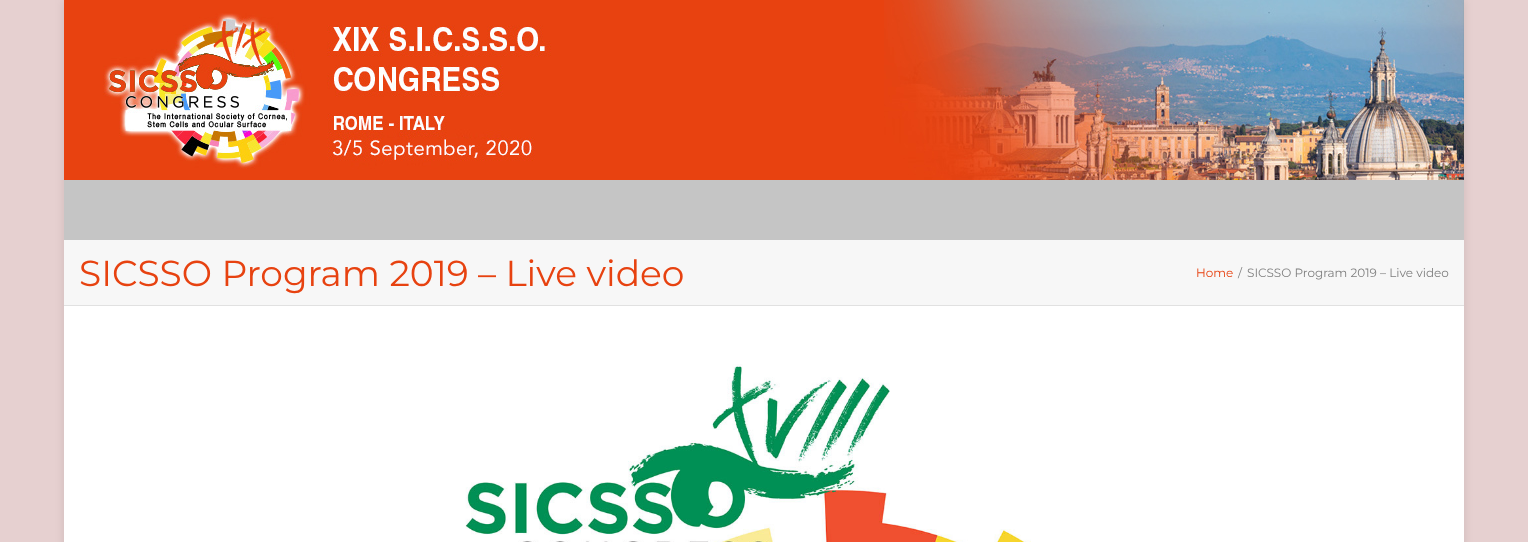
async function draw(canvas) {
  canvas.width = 1528;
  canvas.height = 542;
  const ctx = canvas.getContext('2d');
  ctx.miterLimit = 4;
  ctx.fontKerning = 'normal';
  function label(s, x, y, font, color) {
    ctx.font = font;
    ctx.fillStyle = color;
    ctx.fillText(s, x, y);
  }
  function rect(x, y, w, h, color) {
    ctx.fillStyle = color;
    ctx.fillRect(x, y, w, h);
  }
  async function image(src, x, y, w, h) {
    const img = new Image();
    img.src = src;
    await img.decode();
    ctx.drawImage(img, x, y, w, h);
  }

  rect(0, 0, 1528, 542, '#e6d0d0');
  ctx.fillStyle = '#0000001a';
  ctx.filter = 'blur(5px)';
  ctx.beginPath();
  ctx.rect(64, 0, 1400, 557);
  ctx.fill();
  ctx.filter = 'none';
  rect(64, 0, 820, 180, '#e84210');
  await image('assets/img1.png', 884, 0, 580, 180);
  await image('assets/img2.png', 103, 13, 448, 156);
  rect(64, 180, 1400, 60, '#c5c5c5');
  rect(64, 306, 1400, 236, '#fff');
  rect(64, 240, 1400, 65, '#f7f7f7');
  rect(64, 305, 1400, 1, '#e1e1e1');
  label('SICSSO Program 2019 – Live video', 79, 286, '36px Montserrat', '#e74210');
  label('Home', 1196, 277, '12px Montserrat', '#e74210');
  label('/', 1238, 277, '12px Montserrat', '#7f7f7f');
  label('SICSSO Program 2019 – Live video', 1247, 277, '12px Montserrat', '#7f7f7f');
  await image('assets/img3.png', 465, 364, 566, 178);
}

draw(document.querySelector('canvas'));
